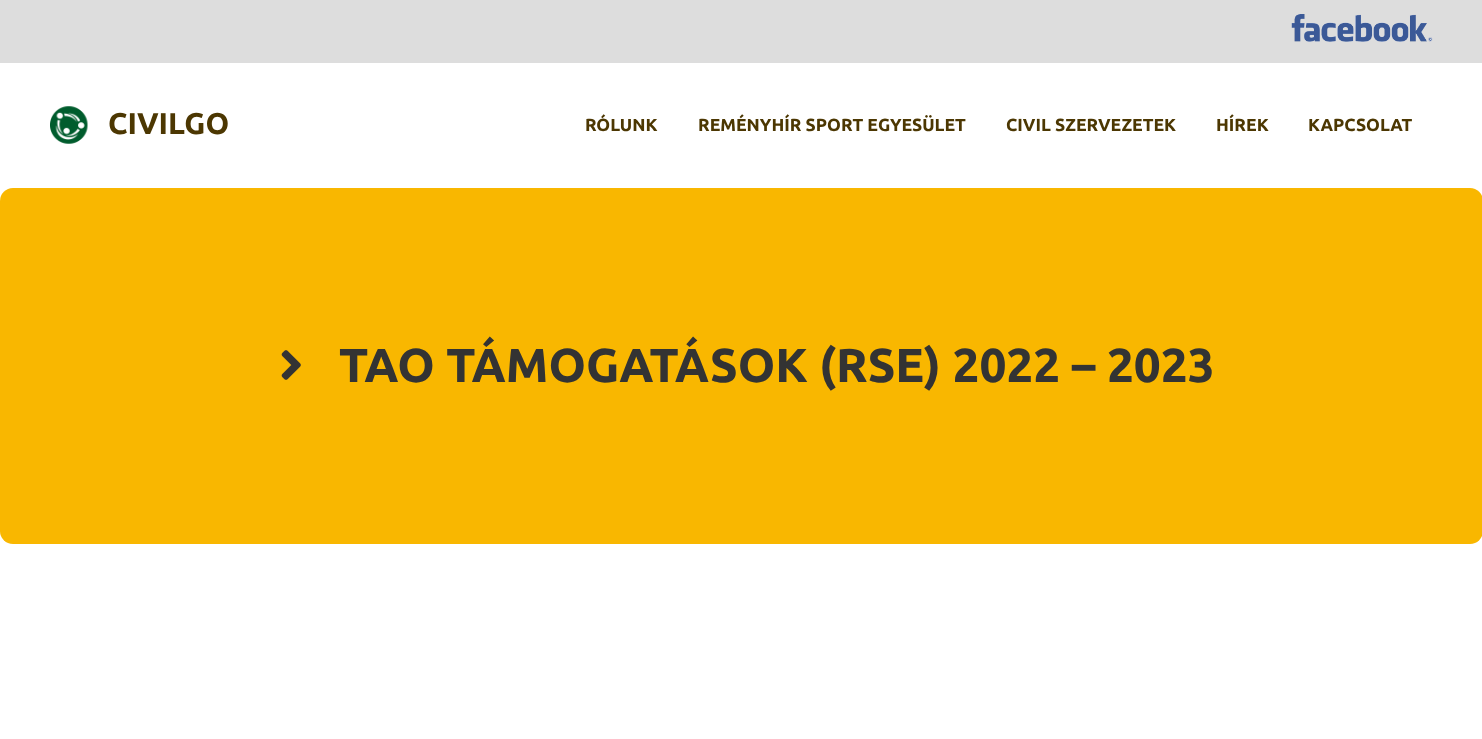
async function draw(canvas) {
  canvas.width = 1482;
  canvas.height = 739;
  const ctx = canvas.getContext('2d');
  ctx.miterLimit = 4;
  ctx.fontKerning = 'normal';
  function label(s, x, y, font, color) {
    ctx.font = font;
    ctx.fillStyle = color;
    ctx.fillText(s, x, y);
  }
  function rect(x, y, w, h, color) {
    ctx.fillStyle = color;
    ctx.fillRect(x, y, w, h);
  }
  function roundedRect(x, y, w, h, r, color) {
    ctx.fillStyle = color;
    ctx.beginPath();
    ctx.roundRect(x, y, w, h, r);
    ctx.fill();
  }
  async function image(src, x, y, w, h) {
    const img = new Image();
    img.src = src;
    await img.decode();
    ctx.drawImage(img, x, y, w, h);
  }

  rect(0, 0, 1482, 739, '#fff');
  rect(0, 0, 1482, 63, '#ddd');
  await image('assets/img1.png', 1291, 14, 142, 28);
  await image('assets/img2.png', 50, 106, 38, 38);
  label('CIVILGO', 108, 134, 'bold 30px Ubuntu', '#4c3702');
  label('RÓLUNK', 585, 131, 'bold 17.5px Ubuntu', '#4c3702');
  label('REMÉNYHÍR SPORT EGYESÜLET', 698, 131, 'bold 17.5px Ubuntu', '#4c3702');
  label('CIVIL SZERVEZETEK', 1006, 131, 'bold 17.5px Ubuntu', '#4c3702');
  label('HÍREK', 1216, 131, 'bold 17.5px Ubuntu', '#4c3702');
  label('KAPCSOLAT', 1308, 131, 'bold 17.5px Ubuntu', '#4c3702');
  roundedRect(0, 188, 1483, 356, 13, '#f9b700');
  await image('assets/img3.png', 281, 350, 20, 30);
  label('TAO TÁMOGATÁSOK (RSE) 2022 – 2023', 339, 382, 'bold 47.5px Ubuntu', '#333');
}

draw(document.querySelector('canvas'));
